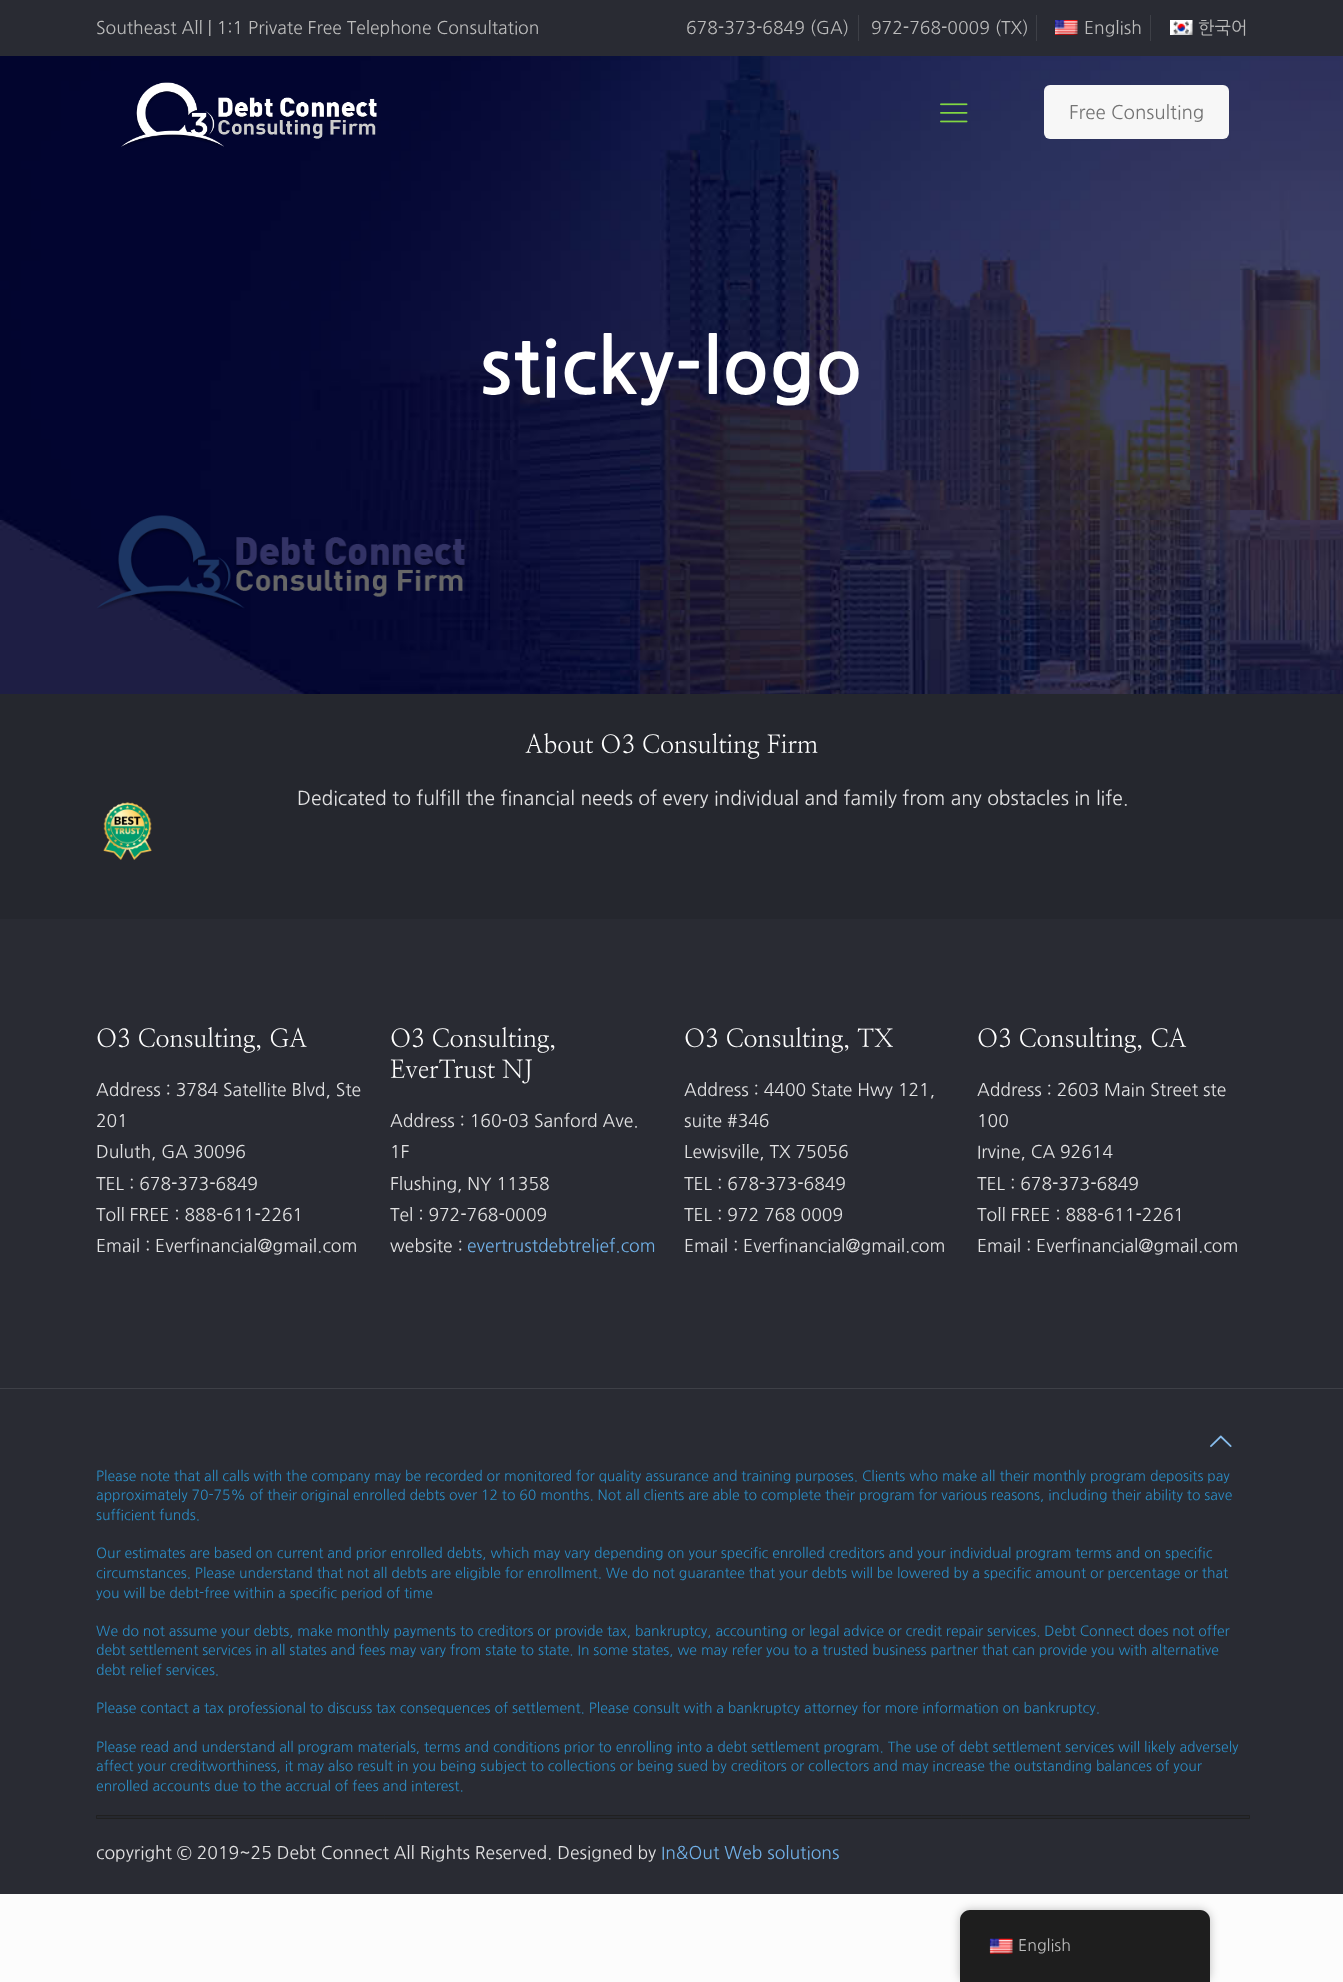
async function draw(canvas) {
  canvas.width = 1343;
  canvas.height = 1982;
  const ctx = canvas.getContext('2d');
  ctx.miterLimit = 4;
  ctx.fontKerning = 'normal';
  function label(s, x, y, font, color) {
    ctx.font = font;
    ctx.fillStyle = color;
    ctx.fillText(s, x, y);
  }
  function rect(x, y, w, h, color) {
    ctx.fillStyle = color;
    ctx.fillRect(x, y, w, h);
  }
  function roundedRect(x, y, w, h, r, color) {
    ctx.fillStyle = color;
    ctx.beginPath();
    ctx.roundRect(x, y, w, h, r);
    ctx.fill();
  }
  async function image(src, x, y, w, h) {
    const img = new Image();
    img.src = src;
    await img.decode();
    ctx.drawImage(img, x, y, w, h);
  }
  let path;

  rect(0, 0, 1343, 1982, '#fcfcfc');
  await image('assets/img1.png', 0, 56, 1343, 638);
  rect(0, 0, 1343, 56, '#292b33');
  label('Southeast All | 1:1 Private Free Telephone Consultation', 96, 34, '17.5px NanumGothic', '#bbb');
  rect(858, 15, 1, 26, '#3e4047');
  label('678-373-6849 (GA)', 686, 34, '17.5px NanumGothic', '#bbb');
  rect(1036, 15, 1, 26, '#3e4047');
  label('972-768-0009 (TX)', 871, 34, '17.5px NanumGothic', '#bbb');
  rect(1150, 15, 1, 26, '#3e4047');
  await image('assets/img2.png', 1055, 20, 23, 15);
  label('English', 1084, 34, '17.5px NanumGothic', '#bbb');
  await image('assets/img3.png', 1170, 20, 23, 15);
  label('한국어', 1198, 34, '17.5px NanumGothic', '#bbb');
  await image('assets/img4.png', 121, 82, 256, 65);
  await image('assets/img5.png', 940, 103, 28, 20);
  roundedRect(1044, 85, 185, 54, 6, '#f7f7f7');
  label('Free Consulting', 1069, 119, '18.75px NanumGothic', '#747474');
  ctx.letterSpacing = '1.25px';
  label('sticky-logo', 480, 394, 'bold 75px NanumGothic', '#fff');
  await image('assets/img6.png', 97, 515, 369, 94);
  rect(0, 919, 1343, 975, '#292b33');
  rect(0, 694, 1343, 225, '#25272e');
  ctx.letterSpacing = '0px';
  label('About O3 Consulting Firm', 525, 753, '25px NanumMyeongjo', '#fff');
  label('Dedicated to fulfill the financial needs of every individual and family from any obstacles in life.', 297, 805, '19.25px NanumGothic', '#e2e2e3');
  await image('assets/img7.png', 103, 802, 49, 58);
  label('O3 Consulting, GA', 96, 1047, '25px NanumMyeongjo', '#fff');
  label('Address : 3784 Satellite Blvd, Ste', 96, 1096, '17.5px NanumGothic', '#e2e2e3');
  label('201', 96, 1127, '17.5px NanumGothic', '#e2e2e3');
  label('Duluth, GA 30096', 96, 1158, '17.5px NanumGothic', '#e2e2e3');
  label('TEL : 678-373-6849', 96, 1190, '17.5px NanumGothic', '#e2e2e3');
  label('Toll FREE : 888-611-2261', 96, 1221, '17.5px NanumGothic', '#e2e2e3');
  label('Email : Everfinancial@gmail.com', 96, 1252, '17.5px NanumGothic', '#e2e2e3');
  label('O3 Consulting,', 390, 1047, '25px NanumMyeongjo', '#fff');
  label('EverTrust NJ', 390, 1078, '25px NanumMyeongjo', '#fff');
  label('Address : 160-03 Sanford Ave.', 390, 1127, '17.5px NanumGothic', '#e2e2e3');
  label('1F', 390, 1158, '17.5px NanumGothic', '#e2e2e3');
  label('Flushing, NY 11358', 390, 1190, '17.5px NanumGothic', '#e2e2e3');
  label('Tel : 972-768-0009', 390, 1221, '17.5px NanumGothic', '#e2e2e3');
  label('website :', 390, 1252, '17.5px NanumGothic', '#e2e2e3');
  label('evertrustdebtrelief.com', 467, 1252, '17.5px NanumGothic', '#71b1e8');
  label('O3 Consulting, TX', 684, 1047, '25px NanumMyeongjo', '#fff');
  label('Address : 4400 State Hwy 121,', 684, 1096, '17.5px NanumGothic', '#e2e2e3');
  label('suite #346', 684, 1127, '17.5px NanumGothic', '#e2e2e3');
  label('Lewisville, TX 75056', 684, 1158, '17.5px NanumGothic', '#e2e2e3');
  label('TEL : 678-373-6849', 684, 1190, '17.5px NanumGothic', '#e2e2e3');
  label('TEL : 972 768 0009', 684, 1221, '17.5px NanumGothic', '#e2e2e3');
  label('Email : Everfinancial@gmail.com', 684, 1252, '17.5px NanumGothic', '#e2e2e3');
  label('O3 Consulting, CA', 977, 1047, '25px NanumMyeongjo', '#fff');
  label('Address : 2603 Main Street ste', 977, 1096, '17.5px NanumGothic', '#e2e2e3');
  label('100', 977, 1127, '17.5px NanumGothic', '#e2e2e3');
  label('Irvine, CA 92614', 977, 1158, '17.5px NanumGothic', '#e2e2e3');
  label('TEL : 678-373-6849', 977, 1190, '17.5px NanumGothic', '#e2e2e3');
  label('Toll FREE : 888-611-2261', 977, 1221, '17.5px NanumGothic', '#e2e2e3');
  label('Email : Everfinancial@gmail.com', 977, 1252, '17.5px NanumGothic', '#e2e2e3');
  rect(0, 1388, 1343, 1, '#3e4047');
  await image('assets/img8.png', 1210, 1435, 22, 12);
  label('Please note that all calls with the company may be recorded or monitored for quality assurance and training purposes. Clients who make all their monthly program deposits pay', 96, 1481, '14px NanumGothic', '#2b8bc3');
  label('approximately 70-75% of their original enrolled debts over 12 to 60 months. Not all clients are able to complete their program for various reasons, including their ability to save', 96, 1500, '14px NanumGothic', '#2b8bc3');
  label('sufficient funds.', 96, 1520, '14px NanumGothic', '#2b8bc3');
  label('Our estimates are based on current and prior enrolled debts, which may vary depending on your specific enrolled creditors and your individual program terms and on specific', 96, 1558, '14px NanumGothic', '#2b8bc3');
  label('circumstances. Please understand that not all debts are eligible for enrollment. We do not guarantee that your debts will be lowered by a specific amount or percentage or that', 96, 1578, '14px NanumGothic', '#2b8bc3');
  label('you will be debt-free within a specific period of time', 96, 1598, '14px NanumGothic', '#2b8bc3');
  label('We do not assume your debts, make monthly payments to creditors or provide tax, bankruptcy, accounting or legal advice or credit repair services. Debt Connect does not offer', 96, 1636, '14px NanumGothic', '#2b8bc3');
  label('debt settlement services in all states and fees may vary from state to state. In some states, we may refer you to a trusted business partner that can provide you with alternative', 96, 1655, '14px NanumGothic', '#2b8bc3');
  label('debt relief services.', 96, 1675, '14px NanumGothic', '#2b8bc3');
  label('Please contact a tax professional to discuss tax consequences of settlement. Please consult with a bankruptcy attorney for more information on bankruptcy.', 96, 1713, '14px NanumGothic', '#2b8bc3');
  label('Please read and understand all program materials, terms and conditions prior to enrolling into a debt settlement program. The use of debt settlement services will likely adversely', 96, 1752, '14px NanumGothic', '#2b8bc3');
  label('affect your creditworthiness, it may also result in you being subject to collections or being sued by creditors or collectors and may increase the outstanding balances of your', 96, 1771, '14px NanumGothic', '#2b8bc3');
  label('enrolled accounts due to the accrual of fees and interest.', 96, 1791, '14px NanumGothic', '#2b8bc3');
  ctx.fillStyle = '#26282f';
  ctx.beginPath();
  ctx.rect(96.5, 1815.5, 1153, 3);
  ctx.fill();
  ctx.strokeStyle = '#202020';
  ctx.stroke();
  label('copyright © 2019~25 Debt Connect All Rights Reserved. Designed by', 96, 1859, '17.5px NanumGothic', '#e2e2e3');
  label('In&Out Web solutions', 661, 1859, '17.5px NanumGothic', '#71b1e8');
  ctx.fillStyle = '#00000040';
  ctx.filter = 'blur(5px)';
  ctx.beginPath();
  ctx.roundRect(960, 1910, 250, 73, 10);
  ctx.fill();
  ctx.filter = 'none';
  ctx.fillStyle = '#1e1e1e';
  path = new Path2D('M970 1910H1200C1205.5 1910 1210 1914.5 1210 1920V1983H960V1920C960 1914.5 964.5 1910 970 1910Z');
  ctx.fill(path);
  await image('assets/img9.png', 989, 1938, 24, 16);
  label('English', 1018, 1951, '16px NanumGothic', '#bbb');
}

draw(document.querySelector('canvas'));
